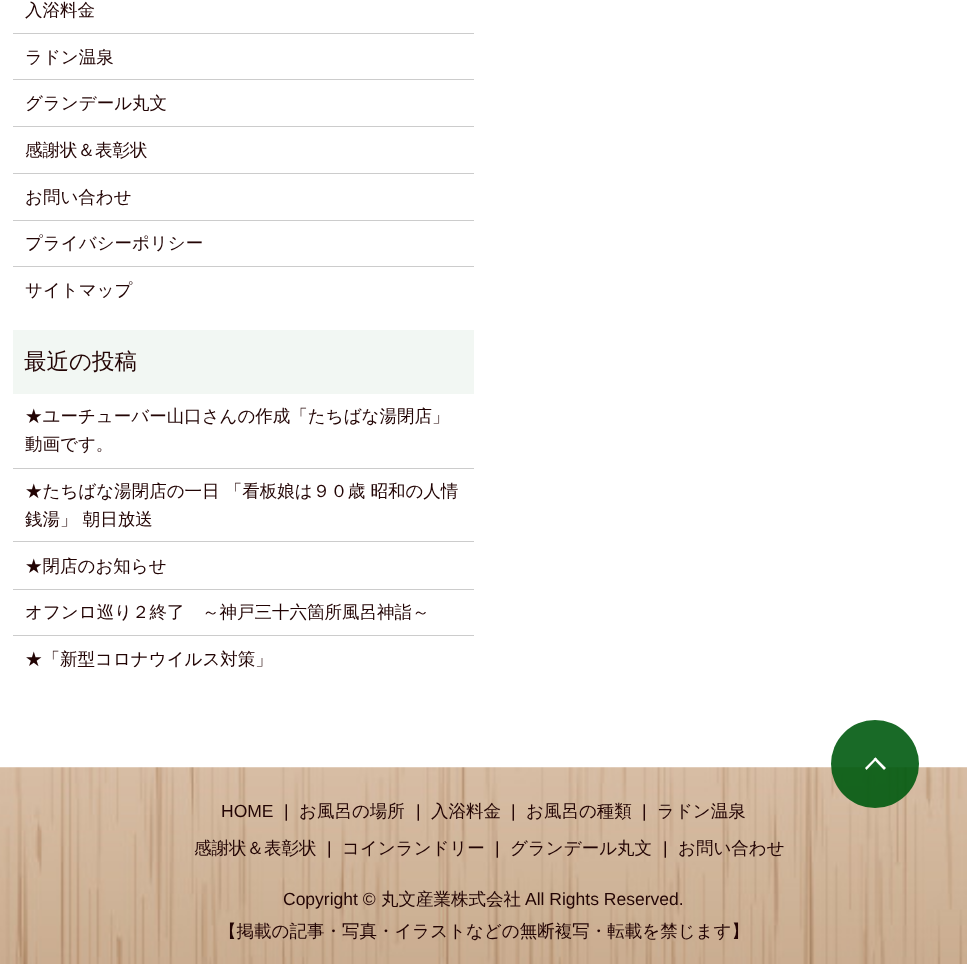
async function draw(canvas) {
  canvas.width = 967;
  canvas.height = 964;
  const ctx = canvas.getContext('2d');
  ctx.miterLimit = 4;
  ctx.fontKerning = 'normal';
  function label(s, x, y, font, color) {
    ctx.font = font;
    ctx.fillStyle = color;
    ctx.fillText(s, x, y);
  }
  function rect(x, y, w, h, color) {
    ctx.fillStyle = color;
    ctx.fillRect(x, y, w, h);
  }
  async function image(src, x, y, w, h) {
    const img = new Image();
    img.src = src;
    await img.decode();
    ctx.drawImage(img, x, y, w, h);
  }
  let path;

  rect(0, 0, 967, 964, '#fff');
  rect(13, 33, 461, 1, '#ccc');
  label('入浴料金', 25, 16, '500 17.5px WenQuanYi Zen Hei', '#220404');
  rect(13, 79, 461, 1, '#ccc');
  label('ラドン温泉', 25, 63, '500 17.5px WenQuanYi Zen Hei', '#220404');
  rect(13, 126, 461, 1, '#ccc');
  label('グランデール丸文', 25, 109, '500 17.5px WenQuanYi Zen Hei', '#220404');
  rect(13, 173, 461, 1, '#ccc');
  label('感謝状＆表彰状', 25, 156, '500 17.5px WenQuanYi Zen Hei', '#220404');
  rect(13, 220, 461, 1, '#ccc');
  label('お問い合わせ', 25, 203, '500 17.5px WenQuanYi Zen Hei', '#220404');
  rect(13, 266, 461, 1, '#ccc');
  label('プライバシーポリシー', 25, 249, '500 17.5px WenQuanYi Zen Hei', '#220404');
  label('サイトマップ', 25, 296, '500 17.5px WenQuanYi Zen Hei', '#220404');
  rect(13, 330, 461, 64, '#f2f7f3');
  label('最近の投稿', 24, 369, '500 22.5px WenQuanYi Zen Hei', '#220404');
  rect(13, 468, 461, 1, '#ccc');
  label('★ユーチューバー山口さんの作成「たちばな湯閉店」', 25, 422, '500 17.5px WenQuanYi Zen Hei', '#220404');
  label('動画です。', 25, 450, '500 17.5px WenQuanYi Zen Hei', '#220404');
  rect(13, 541, 461, 1, '#ccc');
  label('★たちばな湯閉店の一日 「看板娘は９０歳 昭和の人情', 25, 497, '500 17.5px WenQuanYi Zen Hei', '#220404');
  label('銭湯」 朝日放送', 25, 525, '500 17.5px WenQuanYi Zen Hei', '#220404');
  rect(13, 589, 461, 1, '#ccc');
  label('★閉店のお知らせ', 25, 572, '500 17.5px WenQuanYi Zen Hei', '#220404');
  rect(13, 635, 461, 1, '#ccc');
  label('オフンロ巡り２終了　～神戸三十六箇所風呂神詣～', 25, 618, '500 17.5px WenQuanYi Zen Hei', '#220404');
  label('★「新型コロナウイルス対策」', 25, 665, '500 17.5px WenQuanYi Zen Hei', '#220404');
  await image('assets/img1.png', 0, 767, 967, 197);
  ctx.fillStyle = '#005a0fe6';
  ctx.beginPath();
  ctx.arc(875, 764, 44, 0, 2 * Math.PI);
  ctx.fill();
  ctx.fillStyle = '#fff';
  path = new Path2D('M875.5 757.5L886 768L884 770L873.5 759Z');
  ctx.fill(path);
  path = new Path2D('M875.5 757.5L877 759L866.5 770L865 768Z');
  ctx.fill(path);
  label('HOME', 221, 817, '17.5px Liberation Sans', '#220404');
  label('|', 284, 817, '17.5px Liberation Sans', '#220404');
  label('お風呂の場所', 299, 817, '500 17.5px WenQuanYi Zen Hei', '#220404');
  label('|', 416, 817, '17.5px Liberation Sans', '#220404');
  label('入浴料金', 431, 817, '500 17.5px WenQuanYi Zen Hei', '#220404');
  label('|', 511, 817, '17.5px Liberation Sans', '#220404');
  label('お風呂の種類', 526, 817, '500 17.5px WenQuanYi Zen Hei', '#220404');
  label('|', 642, 817, '17.5px Liberation Sans', '#220404');
  label('ラドン温泉', 657, 817, '500 17.5px WenQuanYi Zen Hei', '#220404');
  label('感謝状＆表彰状', 194, 854, '500 17.5px WenQuanYi Zen Hei', '#220404');
  label('|', 327, 854, '17.5px Liberation Sans', '#220404');
  label('コインランドリー', 342, 854, '500 17.5px WenQuanYi Zen Hei', '#220404');
  label('|', 495, 854, '17.5px Liberation Sans', '#220404');
  label('グランデール丸文', 510, 854, '500 17.5px WenQuanYi Zen Hei', '#220404');
  label('|', 663, 854, '17.5px Liberation Sans', '#220404');
  label('お問い合わせ', 678, 854, '500 17.5px WenQuanYi Zen Hei', '#220404');
  label('Copyright ©', 283, 905, '17.5px Liberation Sans', '#220404');
  label('丸文産業株式会社', 381, 905, '500 17.5px WenQuanYi Zen Hei', '#220404');
  label('All Rights Reserved.', 525, 905, '17.5px Liberation Sans', '#220404');
  label('【掲載の記事・写真・イラストなどの無断複写・転載を禁じます】', 219, 937, '500 17.5px WenQuanYi Zen Hei', '#220404');
}

draw(document.querySelector('canvas'));
